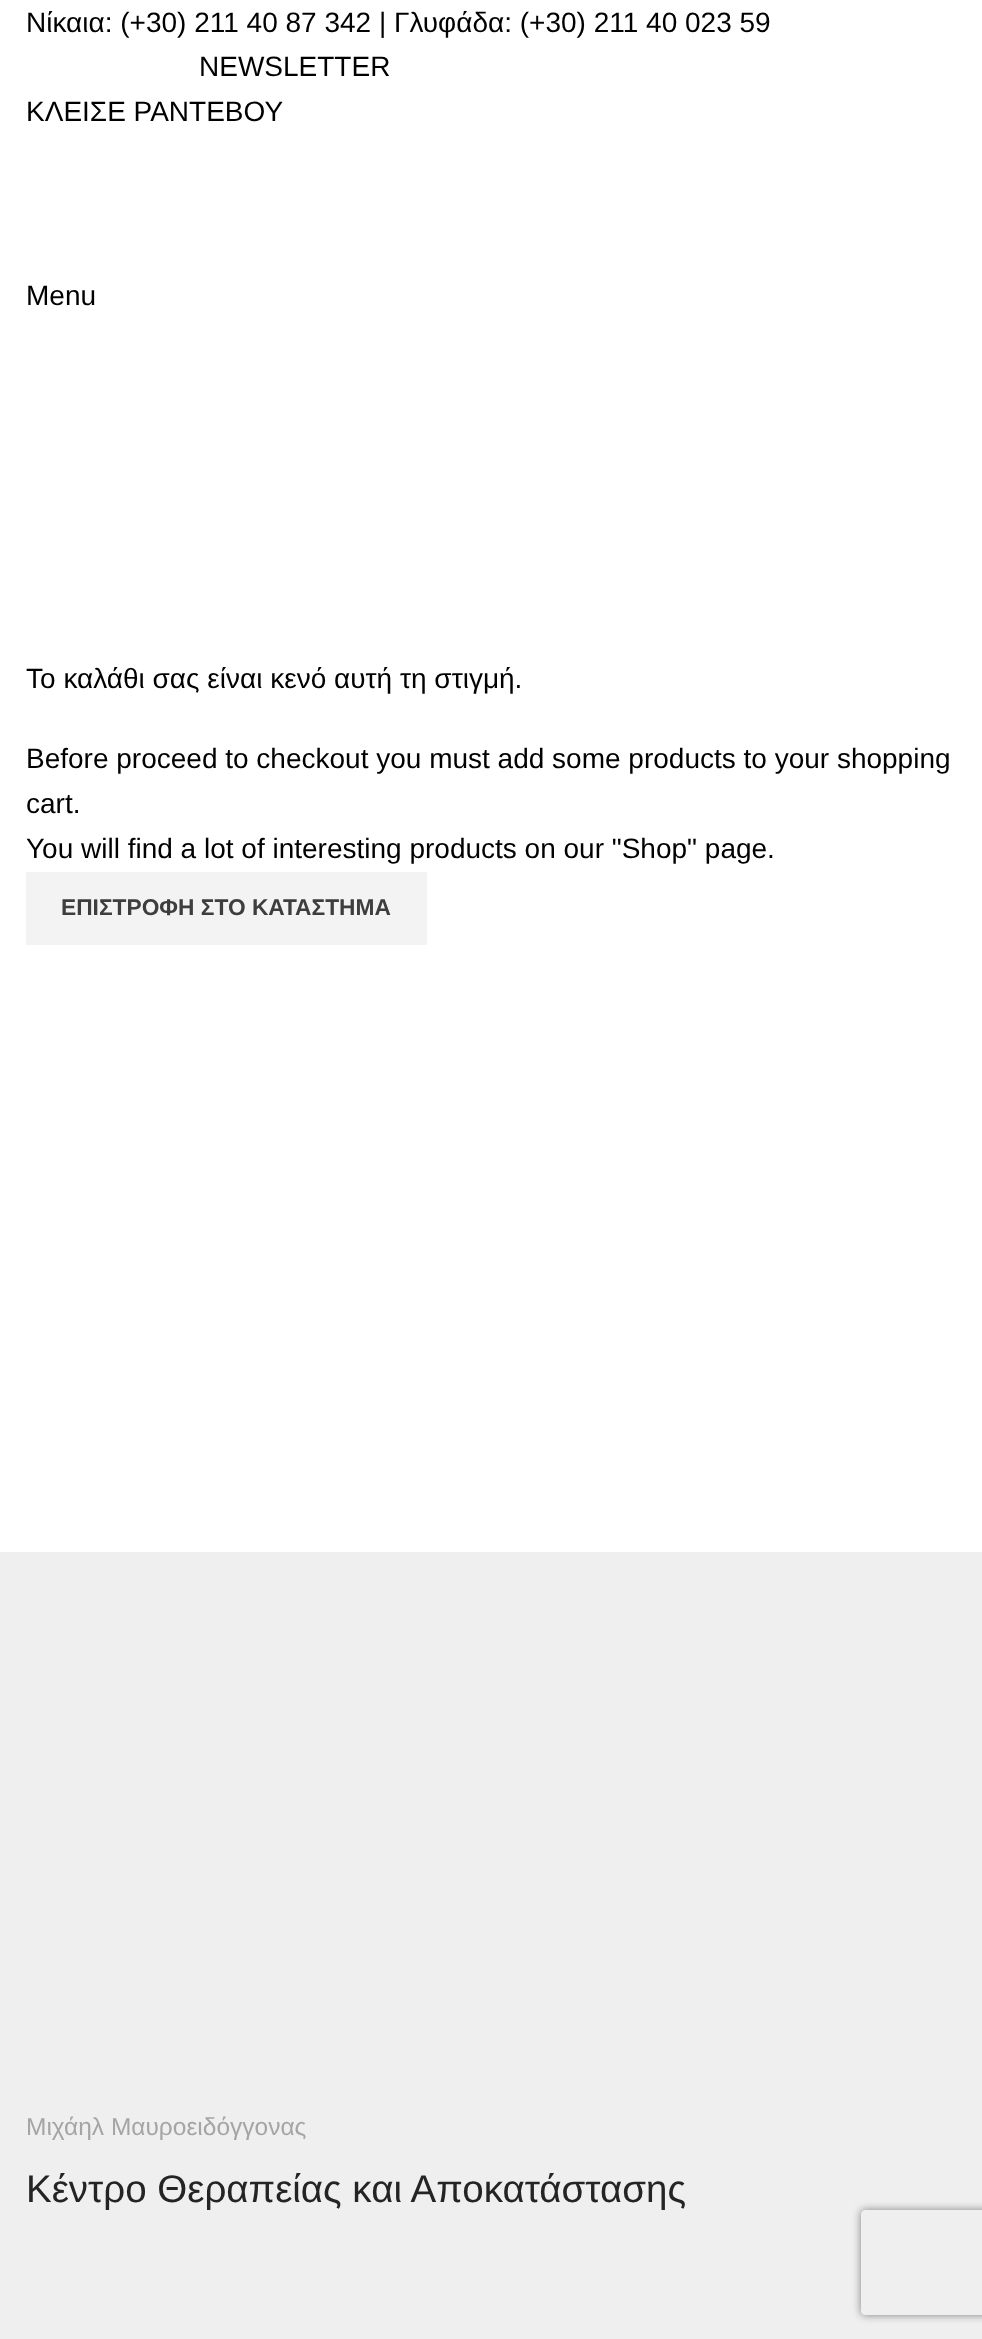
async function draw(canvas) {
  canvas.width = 982;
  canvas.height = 2339;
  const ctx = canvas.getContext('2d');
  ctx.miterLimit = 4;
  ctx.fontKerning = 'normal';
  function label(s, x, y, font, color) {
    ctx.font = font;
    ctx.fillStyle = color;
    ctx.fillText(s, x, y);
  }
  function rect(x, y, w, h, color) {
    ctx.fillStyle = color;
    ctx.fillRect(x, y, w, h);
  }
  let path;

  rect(0, 0, 982, 2339, '#fff');
  label('Νίκαια: (+30) 211 40 87 342 | Γλυφάδα: (+30) 211 40 023 59', 26, 32, '28px Liberation Sans', '#000');
  label('NEWSLETTER', 199, 76, '28px Liberation Sans', '#000');
  label('ΚΛΕΙΣΕ ΡΑΝΤΕΒΟΥ', 26, 121, '28px Liberation Sans', '#000');
  label('Menu', 26, 305, '28px Liberation Sans', '#000');
  label('Το καλάθι σας είναι κενό αυτή τη στιγμή.', 26, 688, '28px Liberation Sans', '#000');
  label('Before proceed to checkout you must add some products to your shopping', 26, 768, '28px Liberation Sans', '#000');
  label('cart.', 26, 813, '28px Liberation Sans', '#000');
  label('You will find a lot of interesting products on our "Shop" page.', 26, 858, '28px Liberation Sans', '#000');
  rect(26, 872, 401, 73, '#f3f3f3');
  label('ΕΠΙΣΤΡΟΦΗ ΣΤΟ ΚΑΤΑΣΤΗΜΑ', 61, 915, 'bold 22.75px Liberation Sans', '#3e3e3e');
  rect(0, 1552, 982, 787, '#efefef');
  label('Μιχάηλ Μαυροειδόγγονας', 26, 2135, '24.5px Liberation Sans', '#a5a5a5');
  label('Kέντρο Θεραπείας και Αποκατάστασης', 26, 2202, '38.5px Liberation Sans', '#242424');
  ctx.save();
  path = new Path2D('M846 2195H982V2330H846ZM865 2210H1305C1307 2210 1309 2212 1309 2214V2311C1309 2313 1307 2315 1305 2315H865C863 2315 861 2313 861 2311V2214C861 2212 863 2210 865 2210Z');
  ctx.clip(path, 'evenodd');
  ctx.fillStyle = '#808080';
  ctx.filter = 'blur(4.5px)';
  ctx.beginPath();
  ctx.roundRect(861, 2210, 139, 105, 4);
  ctx.fill();
  ctx.filter = 'none';
  ctx.restore();
}

draw(document.querySelector('canvas'));
